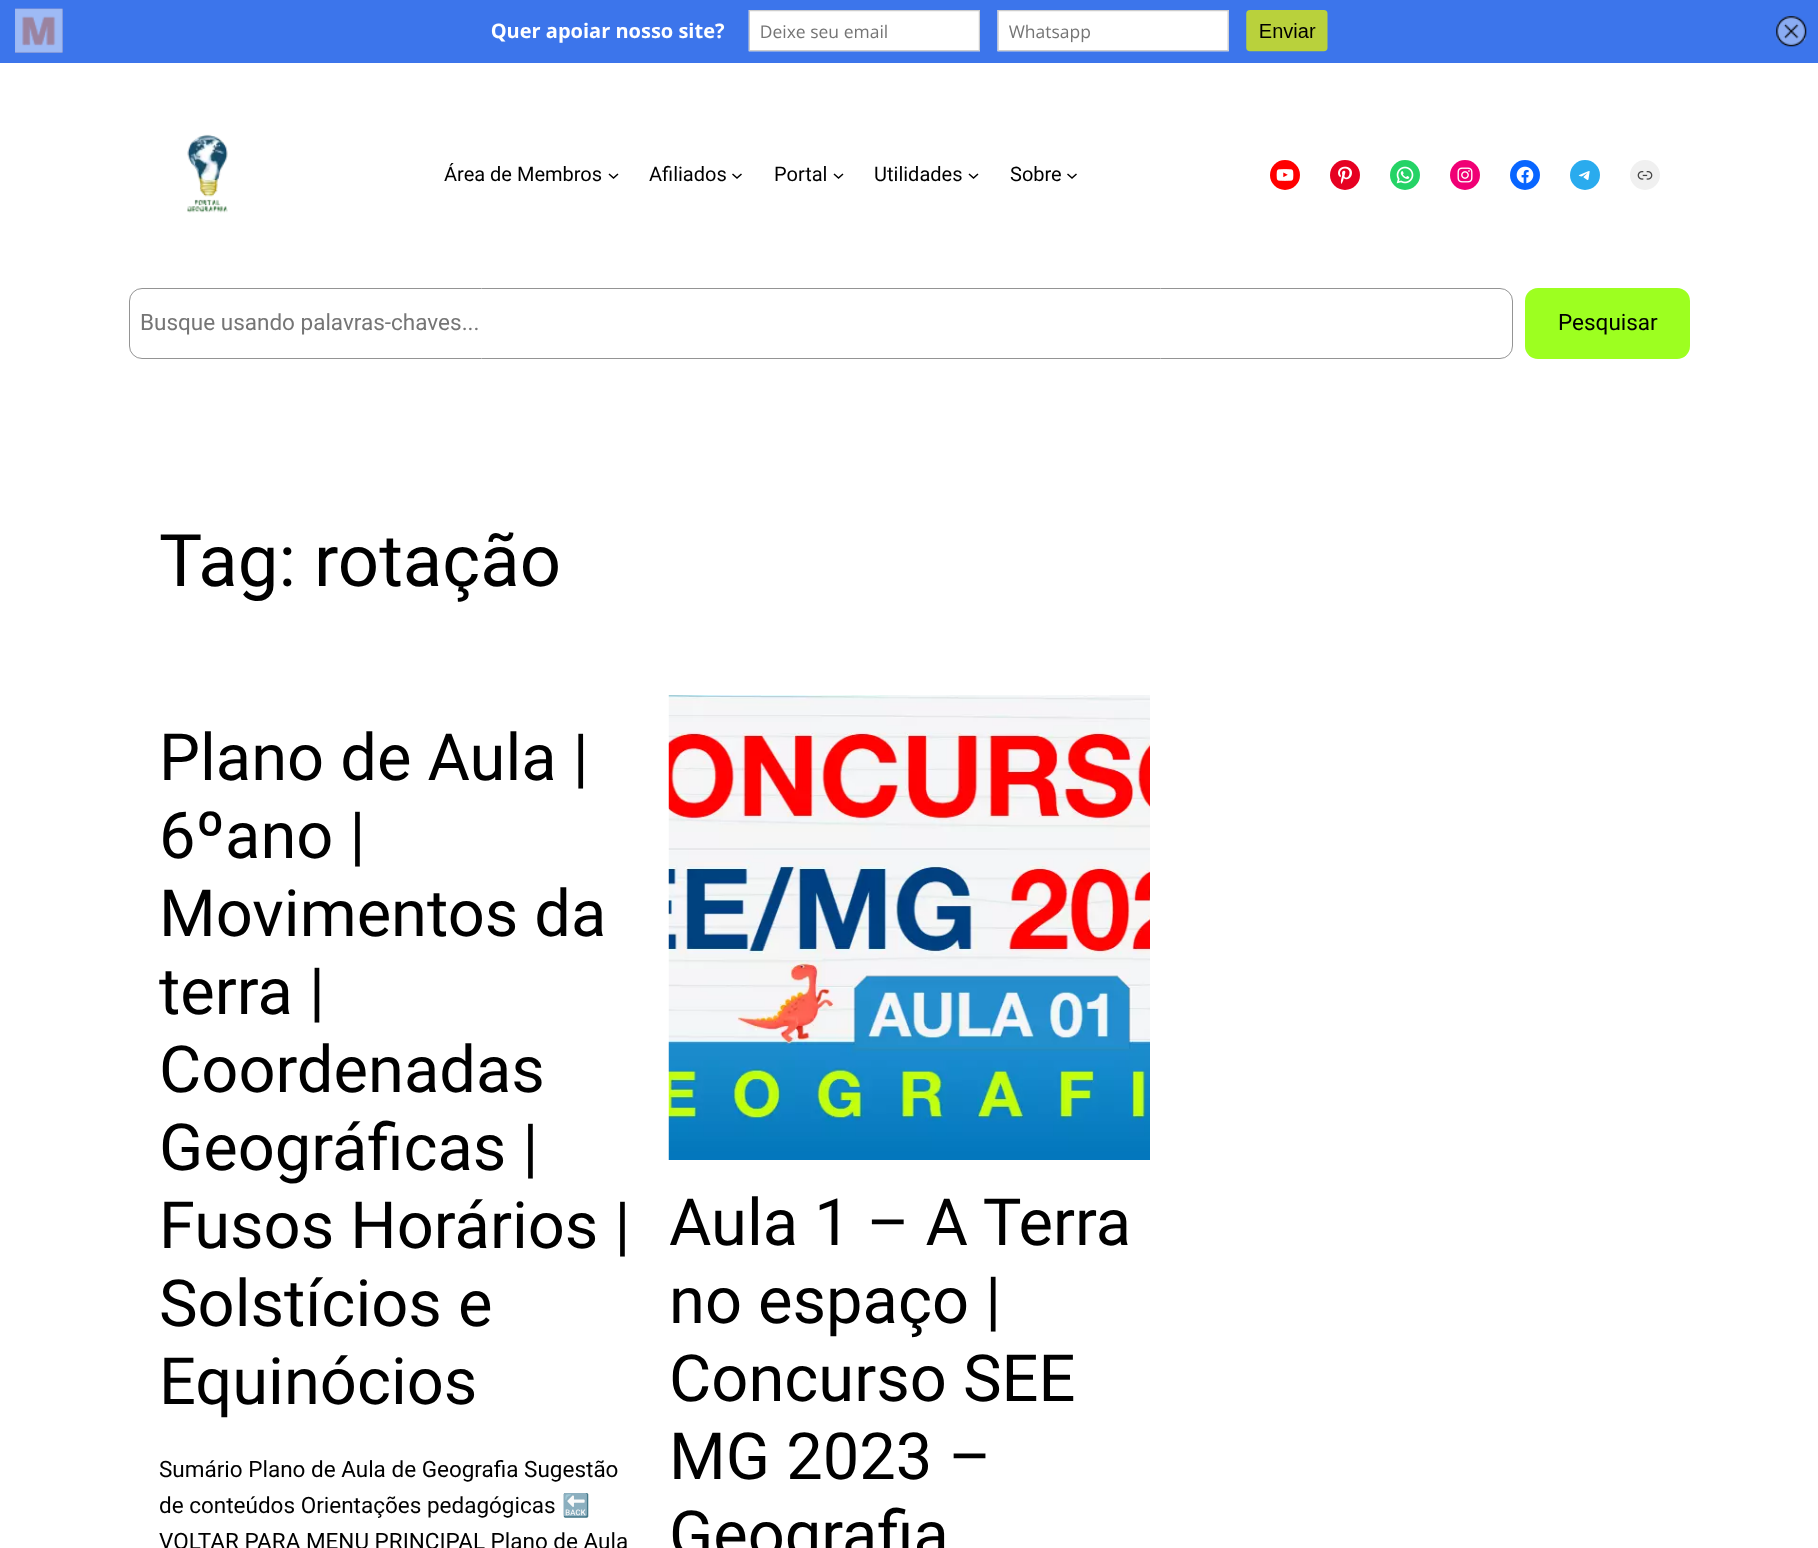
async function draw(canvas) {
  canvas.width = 1818;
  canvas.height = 1548;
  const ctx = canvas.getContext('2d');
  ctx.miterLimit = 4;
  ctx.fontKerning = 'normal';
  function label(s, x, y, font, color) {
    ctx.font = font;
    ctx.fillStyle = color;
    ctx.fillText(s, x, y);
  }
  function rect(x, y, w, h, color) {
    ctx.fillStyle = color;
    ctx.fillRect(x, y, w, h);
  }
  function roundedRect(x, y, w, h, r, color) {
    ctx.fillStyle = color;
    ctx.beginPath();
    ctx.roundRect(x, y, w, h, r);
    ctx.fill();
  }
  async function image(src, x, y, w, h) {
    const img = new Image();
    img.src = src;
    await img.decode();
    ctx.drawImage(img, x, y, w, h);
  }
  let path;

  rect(0, 0, 1818, 1548, '#fff');
  await image('assets/img1.png', 0, 0, 1818, 63);
  await image('assets/img2.png', 187, 134, 41, 79);
  label('Área de Membros', 444, 181, '20px Roboto', '#000');
  path = new Path2D('M609 174L613.5 178L618 174');
  ctx.strokeStyle = '#000';
  ctx.lineWidth = 1.5;
  ctx.stroke(path);
  label('Afiliados', 649, 181, '20px Roboto', '#000');
  path = new Path2D('M732.5 174L737 178L741.5 174');
  ctx.stroke(path);
  label('Portal', 774, 181, '20px Roboto', '#000');
  path = new Path2D('M834 174L838.5 178L843 174');
  ctx.stroke(path);
  label('Utilidades', 874, 181, '20px Roboto', '#000');
  path = new Path2D('M969 174L973.5 178L978 174');
  ctx.stroke(path);
  label('Sobre', 1010, 181, '20px Roboto', '#000');
  path = new Path2D('M1067.5 174L1072 178L1076.5 174');
  ctx.stroke(path);
  ctx.fillStyle = '#f00';
  ctx.beginPath();
  ctx.arc(1285, 175, 15, 0, 2 * Math.PI);
  ctx.fill();
  await image('assets/img3.png', 1276, 169, 18, 12);
  ctx.fillStyle = '#e60122';
  ctx.beginPath();
  ctx.arc(1345, 175, 15, 0, 2 * Math.PI);
  ctx.fill();
  await image('assets/img4.png', 1338, 166, 14, 18);
  ctx.fillStyle = '#25d366';
  ctx.beginPath();
  ctx.arc(1405, 175, 15, 0, 2 * Math.PI);
  ctx.fill();
  await image('assets/img5.png', 1396, 166, 18, 18);
  ctx.fillStyle = '#f00075';
  ctx.beginPath();
  ctx.arc(1465, 175, 15, 0, 2 * Math.PI);
  ctx.fill();
  await image('assets/img6.png', 1457, 167, 16, 16);
  ctx.fillStyle = '#0866ff';
  ctx.beginPath();
  ctx.arc(1525, 175, 15, 0, 2 * Math.PI);
  ctx.fill();
  await image('assets/img7.png', 1516, 166, 18, 18);
  ctx.fillStyle = '#2aabee';
  ctx.beginPath();
  ctx.arc(1585, 175, 15, 0, 2 * Math.PI);
  ctx.fill();
  await image('assets/img8.png', 1578, 171, 12, 9);
  ctx.fillStyle = '#f0f0f0';
  ctx.beginPath();
  ctx.arc(1645, 175, 15, 0, 2 * Math.PI);
  ctx.fill();
  await image('assets/img9.png', 1637, 171, 16, 9);
  ctx.beginPath();
  ctx.roundRect(129.5, 288.5, 1383, 70, 12.5);
  ctx.strokeStyle = '#949494';
  ctx.lineWidth = 1;
  ctx.stroke();
  label('Busque usando palavras-chaves...', 140, 330, '22.5px Roboto', '#757575');
  roundedRect(1525, 288, 165, 71, 13, '#9dff20');
  label('Pesquisar', 1558, 330, '22.5px Roboto', '#000');
  label('Tag: rotação', 159, 586, '72.5px Roboto', '#000');
  label('Plano de Aula |', 159, 780, '65px Roboto', '#000');
  label('6ºano |', 159, 858, '65px Roboto', '#000');
  label('Movimentos da', 159, 936, '65px Roboto', '#000');
  label('terra |', 159, 1014, '65px Roboto', '#000');
  label('Coordenadas', 159, 1092, '65px Roboto', '#000');
  label('Geográficas |', 159, 1170, '65px Roboto', '#000');
  label('Fusos Horários |', 159, 1248, '65px Roboto', '#000');
  label('Solstícios e', 159, 1326, '65px Roboto', '#000');
  label('Equinócios', 159, 1404, '65px Roboto', '#000');
  label('Sumário Plano de Aula de Geografia Sugestão', 159, 1477, '22.5px Roboto', '#000');
  label('de conteúdos Orientações pedagógicas', 159, 1513, '22.5px Roboto', '#000');
  label('🔙', 562, 1513, '22.5px Noto Color Emoji', '#000');
  label('VOLTAR PARA MENU PRINCIPAL Plano de Aula', 159, 1549, '22.5px Roboto', '#000');
  await image('assets/img10.png', 668, 695, 482, 465);
  label('Aula 1 – A Terra', 669, 1245, '65px Roboto', '#000');
  label('no espaço |', 669, 1323, '65px Roboto', '#000');
  label('Concurso SEE', 669, 1401, '65px Roboto', '#000');
  label('MG 2023 –', 669, 1479, '65px Roboto', '#000');
  label('Geografia', 669, 1557, '65px Roboto', '#000');
}

draw(document.querySelector('canvas'));
